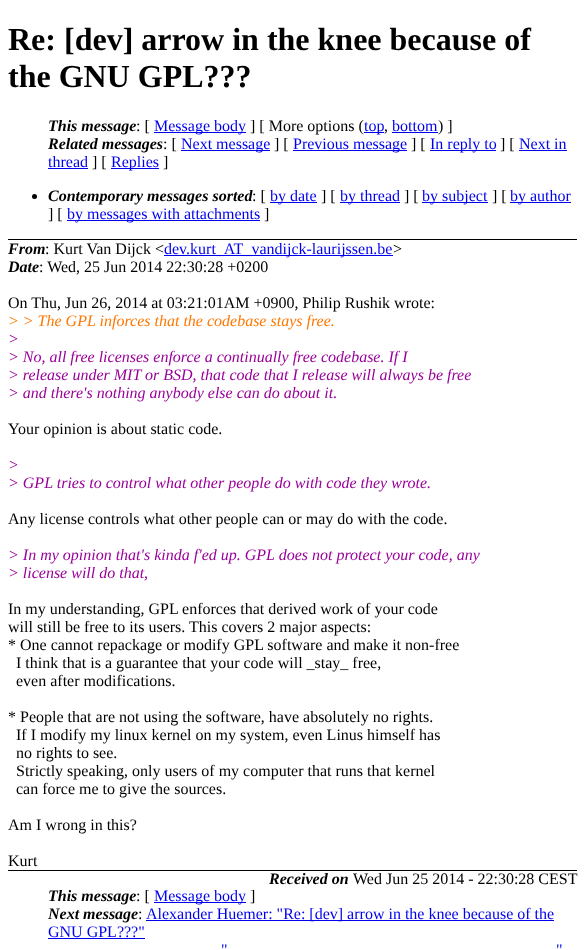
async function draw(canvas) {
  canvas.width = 585;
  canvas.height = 950;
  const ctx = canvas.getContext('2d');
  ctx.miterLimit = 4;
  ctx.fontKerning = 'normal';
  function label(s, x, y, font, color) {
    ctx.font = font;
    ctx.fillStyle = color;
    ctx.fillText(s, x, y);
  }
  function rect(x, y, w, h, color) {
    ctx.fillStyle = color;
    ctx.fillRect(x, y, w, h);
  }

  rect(0, 0, 585, 950, '#fff');
  rect(8, 239, 569, 1, '#000');
  label('Re: [dev] arrow in the knee because of', 8, 50, 'bold 32px Liberation Serif', '#000');
  label('the GNU GPL???', 8, 87, 'bold 32px Liberation Serif', '#000');
  label('This message', 48, 131, 'italic bold 16px Liberation Serif', '#000');
  label(': [', 136, 131, '16px Liberation Serif', '#000');
  rect(154, 132, 92, 1, '#00e');
  label('Message body', 154, 131, '16px Liberation Serif', '#00e');
  label('] [ More options (', 250, 131, '16px Liberation Serif', '#000');
  rect(364, 132, 20, 1, '#00e');
  label('top', 364, 131, '16px Liberation Serif', '#00e');
  label(',', 384, 131, '16px Liberation Serif', '#000');
  label('bottom', 392, 131, '16px Liberation Serif', '#00e');
  rect(392, 132, 46, 1, '#00e');
  label(') ]', 438, 131, '16px Liberation Serif', '#000');
  label('Related messages', 48, 149, 'italic bold 16px Liberation Serif', '#000');
  label(': [', 163, 149, '16px Liberation Serif', '#000');
  rect(181, 150, 89, 1, '#00e');
  label('Next message', 181, 149, '16px Liberation Serif', '#00e');
  label('] [', 274, 149, '16px Liberation Serif', '#000');
  rect(293, 150, 114, 1, '#00e');
  label('Previous message', 293, 149, '16px Liberation Serif', '#00e');
  label('] [', 411, 149, '16px Liberation Serif', '#000');
  rect(430, 150, 66, 1, '#00e');
  label('In reply to', 430, 149, '16px Liberation Serif', '#00e');
  label('] [', 500, 149, '16px Liberation Serif', '#000');
  label('Next in', 519, 149, '16px Liberation Serif', '#00e');
  rect(519, 150, 48, 1, '#00e');
  label('thread', 48, 167, '16px Liberation Serif', '#00e');
  rect(48, 168, 40, 1, '#00e');
  label('] [', 92, 167, '16px Liberation Serif', '#000');
  rect(111, 168, 48, 1, '#00e');
  label('Replies', 111, 167, '16px Liberation Serif', '#00e');
  label(']', 163, 167, '16px Liberation Serif', '#000');
  ctx.beginPath();
  ctx.arc(34.5, 196.5, 2.5, 0, 2 * Math.PI);
  ctx.fill();
  label('Contemporary messages sorted', 48, 201, 'italic bold 16px Liberation Serif', '#000');
  label(': [', 252, 201, '16px Liberation Serif', '#000');
  rect(270, 202, 47, 1, '#00e');
  label('by date', 270, 201, '16px Liberation Serif', '#00e');
  label('] [', 321, 201, '16px Liberation Serif', '#000');
  rect(340, 202, 60, 1, '#00e');
  label('by thread', 340, 201, '16px Liberation Serif', '#00e');
  label('] [', 404, 201, '16px Liberation Serif', '#000');
  rect(422, 202, 66, 1, '#00e');
  label('by subject', 422, 201, '16px Liberation Serif', '#00e');
  label('] [', 492, 201, '16px Liberation Serif', '#000');
  rect(510, 202, 61, 1, '#00e');
  label('by author', 510, 201, '16px Liberation Serif', '#00e');
  label('] [', 48, 219, '16px Liberation Serif', '#000');
  rect(67, 220, 193, 1, '#00e');
  label('by messages with attachments', 67, 219, '16px Liberation Serif', '#00e');
  label(']', 264, 219, '16px Liberation Serif', '#000');
  label('From', 8, 254, 'italic bold 16px Liberation Serif', '#000');
  label(': Kurt Van Dijck <', 45, 254, '16px Liberation Serif', '#000');
  rect(164, 255, 229, 1, '#00e');
  label('dev.kurt_AT_vandijck-laurijssen.be', 164, 254, '16px Liberation Serif', '#00e');
  label('>', 393, 254, '16px Liberation Serif', '#000');
  label('Date', 8, 272, 'italic bold 16px Liberation Serif', '#000');
  label(': Wed, 25 Jun 2014 22:30:28 +0200', 39, 272, '16px Liberation Serif', '#000');
  label('On Thu, Jun 26, 2014 at 03:21:01AM +0900, Philip Rushik wrote:', 8, 308, '16px Liberation Serif', '#000');
  label('> > The GPL inforces that the codebase stays free.', 8, 326, 'italic 16px Liberation Serif', '#f70');
  label('>', 8, 344, 'italic 16px Liberation Serif', '#909');
  label('> No, all free licenses enforce a continually free codebase. If I', 8, 362, 'italic 16px Liberation Serif', '#909');
  label('> release under MIT or BSD, that code that I release will always be free', 8, 380, 'italic 16px Liberation Serif', '#909');
  label('> and there\'s nothing anybody else can do about it.', 8, 398, 'italic 16px Liberation Serif', '#909');
  label('Your opinion is about static code.', 8, 434, '16px Liberation Serif', '#000');
  label('>', 8, 470, 'italic 16px Liberation Serif', '#909');
  label('> GPL tries to control what other people do with code they wrote.', 8, 488, 'italic 16px Liberation Serif', '#909');
  label('Any license controls what other people can or may do with the code.', 8, 524, '16px Liberation Serif', '#000');
  label('> In my opinion that\'s kinda f\'ed up. GPL does not protect your code, any', 8, 560, 'italic 16px Liberation Serif', '#909');
  label('> license will do that,', 8, 578, 'italic 16px Liberation Serif', '#909');
  label('In my understanding, GPL enforces that derived work of your code', 8, 614, '16px Liberation Serif', '#000');
  label('will still be free to its users. This covers 2 major aspects:', 8, 632, '16px Liberation Serif', '#000');
  label('* One cannot repackage or modify GPL software and make it non-free', 8, 650, '16px Liberation Serif', '#000');
  label('I think that is a guarantee that your code will _stay_ free,', 16, 668, '16px Liberation Serif', '#000');
  label('even after modifications.', 16, 686, '16px Liberation Serif', '#000');
  label('* People that are not using the software, have absolutely no rights.', 8, 722, '16px Liberation Serif', '#000');
  label('If I modify my linux kernel on my system, even Linus himself has', 16, 740, '16px Liberation Serif', '#000');
  label('no rights to see.', 16, 758, '16px Liberation Serif', '#000');
  label('Strictly speaking, only users of my computer that runs that kernel', 16, 776, '16px Liberation Serif', '#000');
  label('can force me to give the sources.', 16, 794, '16px Liberation Serif', '#000');
  label('Am I wrong in this?', 8, 830, '16px Liberation Serif', '#000');
  label('Kurt', 8, 866, '16px Liberation Serif', '#000');
  label('Received on', 269, 884, 'italic bold 16px Liberation Serif', '#000');
  label('Wed Jun 25 2014 - 22:30:28 CEST', 353, 884, '16px Liberation Serif', '#000');
  rect(8, 870, 569, 1, '#000');
  label('This message', 48, 901, 'italic bold 16px Liberation Serif', '#000');
  label(': [', 136, 901, '16px Liberation Serif', '#000');
  rect(154, 902, 92, 1, '#00e');
  label('Message body', 154, 901, '16px Liberation Serif', '#00e');
  label(']', 250, 901, '16px Liberation Serif', '#000');
  label('Next message', 48, 919, 'italic bold 16px Liberation Serif', '#000');
  label(':', 138, 919, '16px Liberation Serif', '#000');
  rect(146, 920, 408, 1, '#00e');
  label('Alexander Huemer: "Re: [dev] arrow in the knee because of the', 146, 919, '16px Liberation Serif', '#00e');
  label('GNU GPL???"', 48, 937, '16px Liberation Serif', '#00e');
  rect(48, 938, 97, 1, '#00e');
  label('"', 221, 955, '16px Liberation Serif', '#00e');
  label('"', 556, 955, '16px Liberation Serif', '#00e');
}

draw(document.querySelector('canvas'));
